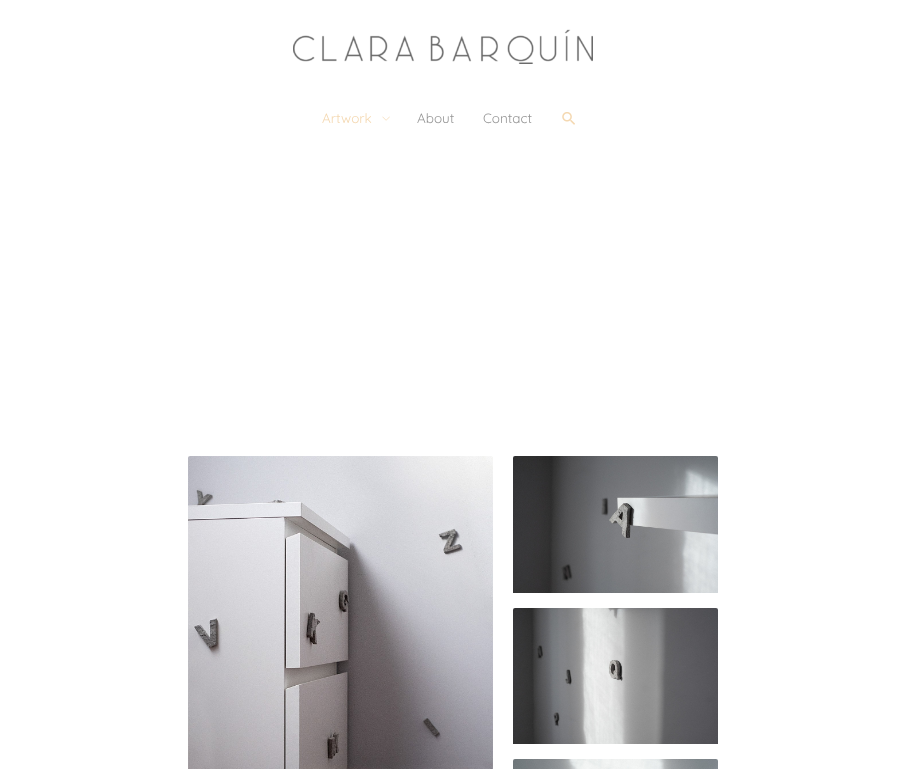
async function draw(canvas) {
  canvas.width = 899;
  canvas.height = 769;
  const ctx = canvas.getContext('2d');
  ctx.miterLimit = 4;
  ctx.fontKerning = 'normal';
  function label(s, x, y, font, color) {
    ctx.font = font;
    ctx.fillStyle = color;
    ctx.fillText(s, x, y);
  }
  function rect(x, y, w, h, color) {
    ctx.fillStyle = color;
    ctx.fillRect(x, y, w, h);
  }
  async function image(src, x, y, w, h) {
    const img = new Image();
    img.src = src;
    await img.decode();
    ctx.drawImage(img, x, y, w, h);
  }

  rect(0, 0, 899, 769, '#fff');
  await image('assets/img1.png', 293, 29, 300, 35);
  label('Artwork', 322, 123, '300 13.5px Quicksand', '#f4d8b1');
  await image('assets/img2.png', 382, 116, 8, 5);
  label('About', 417, 123, '300 13.5px Quicksand', '#969696');
  label('Contact', 483, 123, '300 13.5px Quicksand', '#969696');
  await image('assets/img3.png', 562, 112, 13, 13);
  await image('assets/img4.png', 188, 456, 305, 313);
  await image('assets/img5.png', 513, 456, 205, 137);
  await image('assets/img6.png', 513, 608, 205, 136);
  await image('assets/img7.png', 513, 759, 205, 10);
}

draw(document.querySelector('canvas'));
